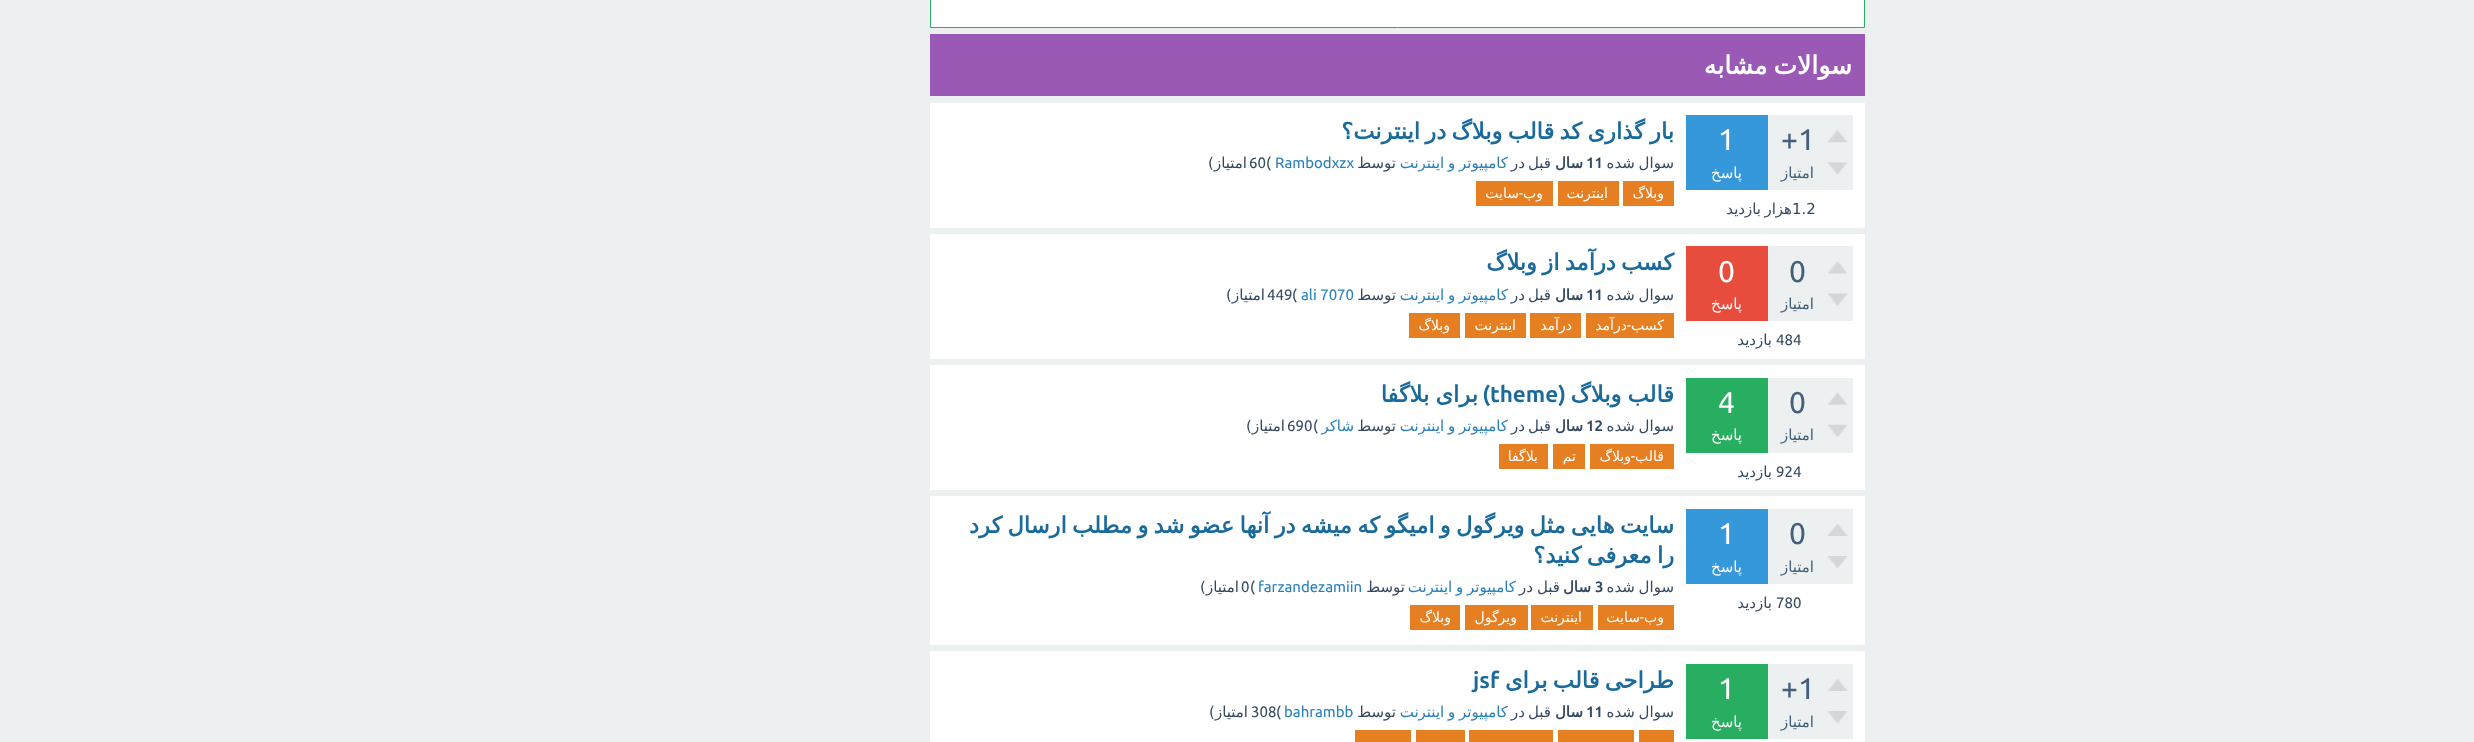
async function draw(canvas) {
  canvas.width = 2474;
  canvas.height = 742;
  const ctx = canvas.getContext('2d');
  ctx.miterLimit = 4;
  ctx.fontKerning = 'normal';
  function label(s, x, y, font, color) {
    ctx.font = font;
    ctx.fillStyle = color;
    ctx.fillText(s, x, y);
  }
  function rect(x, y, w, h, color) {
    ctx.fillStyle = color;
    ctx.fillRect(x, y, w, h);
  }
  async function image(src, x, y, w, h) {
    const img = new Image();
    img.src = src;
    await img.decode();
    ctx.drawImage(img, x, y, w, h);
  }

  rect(0, 0, 2474, 742, '#ecf0f1');
  ctx.fillStyle = '#fff';
  ctx.beginPath();
  ctx.rect(930.5, -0.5, 934, 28);
  ctx.fill();
  ctx.strokeStyle = '#27ae60';
  ctx.stroke();
  rect(930, 34, 935, 62, '#9b59b6');
  ctx.wordSpacing = '-2px';
  ctx.direction = 'rtl';
  label('سوالات مشابه', 1852, 74, 'bold 25px DejaVu Sans', '#fff');
  rect(930, 103, 935, 125, '#fff');
  rect(1768, 115, 85, 75, '#ecf0f1');
  await image('assets/img1.png', 1827, 130, 21, 13);
  await image('assets/img2.png', 1827, 162, 21, 13);
  ctx.wordSpacing = '0px';
  ctx.direction = 'ltr';
  label('+1', 1781, 150, '30px Ubuntu', '#445f7a');
  ctx.direction = 'rtl';
  label('امتیاز', 1814, 178, '15px DejaVu Sans', '#445f7a');
  rect(1686, 115, 82, 75, '#3498db');
  ctx.direction = 'ltr';
  label('1', 1718, 150, '30px Ubuntu', '#fff');
  ctx.direction = 'rtl';
  label('پاسخ', 1742, 178, '15px DejaVu Sans', '#fff');
  ctx.direction = 'ltr';
  label('1.2', 1792, 214, '15px DejaVu Sans', '#34495e');
  ctx.direction = 'rtl';
  label('هزار', 1792, 214, '15px DejaVu Sans', '#34495e');
  label('بازدید', 1761, 214, '15px DejaVu Sans', '#34495e');
  ctx.wordSpacing = '-1.8px';
  label('بار گذاری کد قالب وبلاگ در اینترنت؟', 1674, 139, 'bold 22.5px DejaVu Sans', '#1a6a9b');
  ctx.wordSpacing = '-1px';
  label('سوال شده', 1674, 168, '15px DejaVu Sans', '#34495e');
  ctx.wordSpacing = '0px';
  ctx.direction = 'ltr';
  label('11', 1586, 168, 'bold 15px Ubuntu', '#34495e');
  ctx.direction = 'rtl';
  label('سال', 1583, 168, 'bold 15px DejaVu Sans', '#34495e');
  label('قبل', 1551, 168, '15px DejaVu Sans', '#34495e');
  label('در', 1525, 168, '15px DejaVu Sans', '#34495e');
  ctx.wordSpacing = '-1px';
  label('کامپیوتر و اینترنت', 1508, 168, '15px DejaVu Sans', '#2980b9');
  ctx.wordSpacing = '0px';
  label('توسط', 1396, 168, '15px DejaVu Sans', '#34495e');
  ctx.direction = 'ltr';
  label('Rambodxzx', 1275, 168, '15px Ubuntu', '#2980b9');
  label('(', 1266, 168, '15px Ubuntu', '#34495e');
  label('60', 1249, 168, '15px Ubuntu', '#34495e');
  ctx.direction = 'rtl';
  label('امتیاز)', 1247, 168, '15px DejaVu Sans', '#34495e');
  rect(1623, 181, 51, 25, '#e67e22');
  label('وبلاگ', 1664, 198, '14px DejaVu Sans', '#fff');
  rect(1558, 181, 61, 25, '#e67e22');
  label('اینترنت', 1608, 198, '14px DejaVu Sans', '#fff');
  rect(1476, 181, 77, 25, '#e67e22');
  label('وب', 1543, 198, '14px DejaVu Sans', '#fff');
  label('-', 1523, 198, '14px Ubuntu', '#fff');
  label('سایت', 1519, 198, '14px DejaVu Sans', '#fff');
  rect(930, 234, 935, 125, '#fff');
  rect(1768, 246, 85, 75, '#ecf0f1');
  await image('assets/img3.png', 1828, 261, 19, 13);
  await image('assets/img4.png', 1827, 293, 21, 13);
  ctx.direction = 'ltr';
  label('0', 1789, 282, '30px Ubuntu', '#445f7a');
  ctx.direction = 'rtl';
  label('امتیاز', 1814, 309, '15px DejaVu Sans', '#445f7a');
  rect(1686, 246, 82, 75, '#e74c3c');
  ctx.direction = 'ltr';
  label('0', 1718, 282, '30px Ubuntu', '#fff');
  ctx.direction = 'rtl';
  label('پاسخ', 1742, 309, '15px DejaVu Sans', '#fff');
  ctx.direction = 'ltr';
  label('484', 1776, 345, '15px Ubuntu', '#34495e');
  ctx.direction = 'rtl';
  label('بازدید', 1772, 345, '15px DejaVu Sans', '#34495e');
  ctx.wordSpacing = '-1.8px';
  label('کسب درآمد از وبلاگ', 1674, 270, 'bold 22.5px DejaVu Sans', '#1a6a9b');
  ctx.wordSpacing = '-1px';
  label('سوال شده', 1674, 300, '15px DejaVu Sans', '#34495e');
  ctx.wordSpacing = '0px';
  ctx.direction = 'ltr';
  label('11', 1586, 300, 'bold 15px Ubuntu', '#34495e');
  ctx.direction = 'rtl';
  label('سال', 1583, 300, 'bold 15px DejaVu Sans', '#34495e');
  label('قبل', 1551, 300, '15px DejaVu Sans', '#34495e');
  label('در', 1525, 300, '15px DejaVu Sans', '#34495e');
  ctx.wordSpacing = '-1px';
  label('کامپیوتر و اینترنت', 1508, 300, '15px DejaVu Sans', '#2980b9');
  ctx.wordSpacing = '0px';
  label('توسط', 1396, 300, '15px DejaVu Sans', '#34495e');
  ctx.direction = 'ltr';
  label('ali 7070', 1301, 300, '15px Ubuntu', '#2980b9');
  label('(', 1292, 300, '15px Ubuntu', '#34495e');
  label('449', 1267, 300, '15px Ubuntu', '#34495e');
  ctx.direction = 'rtl';
  label('امتیاز)', 1265, 300, '15px DejaVu Sans', '#34495e');
  rect(1586, 313, 88, 25, '#e67e22');
  label('کسب', 1664, 330, '14px DejaVu Sans', '#fff');
  label('-', 1631, 330, '14px Ubuntu', '#fff');
  label('درآمد', 1627, 330, '14px DejaVu Sans', '#fff');
  rect(1530, 313, 51, 25, '#e67e22');
  label('درآمد', 1572, 330, '14px DejaVu Sans', '#fff');
  rect(1465, 313, 61, 25, '#e67e22');
  label('اینترنت', 1516, 330, '14px DejaVu Sans', '#fff');
  rect(1409, 313, 51, 25, '#e67e22');
  label('وبلاگ', 1450, 330, '14px DejaVu Sans', '#fff');
  rect(930, 365, 935, 125, '#fff');
  rect(1768, 378, 85, 75, '#ecf0f1');
  await image('assets/img5.png', 1827, 392, 21, 13);
  await image('assets/img6.png', 1827, 424, 21, 13);
  ctx.direction = 'ltr';
  label('0', 1789, 413, '30px Ubuntu', '#445f7a');
  ctx.direction = 'rtl';
  label('امتیاز', 1814, 440, '15px DejaVu Sans', '#445f7a');
  rect(1686, 378, 82, 75, '#27ae60');
  ctx.direction = 'ltr';
  label('4', 1718, 413, '30px Ubuntu', '#fff');
  ctx.direction = 'rtl';
  label('پاسخ', 1742, 440, '15px DejaVu Sans', '#fff');
  ctx.direction = 'ltr';
  label('924', 1776, 477, '15px Ubuntu', '#34495e');
  ctx.direction = 'rtl';
  label('بازدید', 1772, 477, '15px DejaVu Sans', '#34495e');
  ctx.wordSpacing = '-1px';
  label('قالب وبلاگ', 1674, 402, 'bold 22.5px DejaVu Sans', '#1a6a9b');
  ctx.wordSpacing = '0px';
  label('(', 1566, 402, 'bold 22.5px Ubuntu', '#1a6a9b');
  ctx.direction = 'ltr';
  label('theme', 1490, 402, 'bold 22.5px Ubuntu', '#1a6a9b');
  ctx.direction = 'rtl';
  label(')', 1490, 402, 'bold 22.5px Ubuntu', '#1a6a9b');
  ctx.wordSpacing = '-1px';
  label('برای بلاگفا', 1478, 402, 'bold 22.5px DejaVu Sans', '#1a6a9b');
  label('سوال شده', 1674, 431, '15px DejaVu Sans', '#34495e');
  ctx.wordSpacing = '0px';
  ctx.direction = 'ltr';
  label('12', 1586, 431, 'bold 15px Ubuntu', '#34495e');
  ctx.direction = 'rtl';
  label('سال', 1583, 431, 'bold 15px DejaVu Sans', '#34495e');
  label('قبل', 1551, 431, '15px DejaVu Sans', '#34495e');
  label('در', 1525, 431, '15px DejaVu Sans', '#34495e');
  ctx.wordSpacing = '-1px';
  label('کامپیوتر و اینترنت', 1508, 431, '15px DejaVu Sans', '#2980b9');
  ctx.wordSpacing = '0px';
  label('توسط', 1396, 431, '15px DejaVu Sans', '#34495e');
  label('شاکر', 1354, 431, '15px DejaVu Sans', '#2980b9');
  ctx.direction = 'ltr';
  label('(', 1313, 431, '15px Ubuntu', '#34495e');
  label('690', 1287, 431, '15px Ubuntu', '#34495e');
  ctx.direction = 'rtl';
  label('امتیاز)', 1285, 431, '15px DejaVu Sans', '#34495e');
  rect(1590, 444, 84, 25, '#e67e22');
  label('قالب', 1664, 461, '14px DejaVu Sans', '#fff');
  label('-', 1635, 461, '14px Ubuntu', '#fff');
  label('وبلاگ', 1631, 461, '14px DejaVu Sans', '#fff');
  rect(1553, 444, 32, 25, '#e67e22');
  label('تم', 1576, 461, '14px DejaVu Sans', '#fff');
  rect(1499, 444, 49, 25, '#e67e22');
  label('بلاگفا', 1538, 461, '14px DejaVu Sans', '#fff');
  rect(930, 496, 935, 149, '#fff');
  rect(1768, 509, 85, 75, '#ecf0f1');
  await image('assets/img7.png', 1827, 524, 21, 12);
  await image('assets/img8.png', 1827, 556, 21, 12);
  ctx.direction = 'ltr';
  label('0', 1789, 544, '30px Ubuntu', '#445f7a');
  ctx.direction = 'rtl';
  label('امتیاز', 1814, 572, '15px DejaVu Sans', '#445f7a');
  rect(1686, 509, 82, 75, '#3498db');
  ctx.direction = 'ltr';
  label('1', 1718, 544, '30px Ubuntu', '#fff');
  ctx.direction = 'rtl';
  label('پاسخ', 1742, 572, '15px DejaVu Sans', '#fff');
  ctx.direction = 'ltr';
  label('780', 1776, 608, '15px Ubuntu', '#34495e');
  ctx.direction = 'rtl';
  label('بازدید', 1772, 608, '15px DejaVu Sans', '#34495e');
  ctx.wordSpacing = '-1.8px';
  label('سایت هایی مثل ویرگول و امیگو که میشه در آنها عضو شد و مطلب ارسال کرد', 1674, 533, 'bold 22.5px DejaVu Sans', '#1a6a9b');
  label('را معرفی کنید؟', 1674, 563, 'bold 22.5px DejaVu Sans', '#1a6a9b');
  ctx.wordSpacing = '-1px';
  label('سوال شده', 1674, 592, '15px DejaVu Sans', '#34495e');
  ctx.wordSpacing = '0px';
  ctx.direction = 'ltr';
  label('3', 1595, 592, 'bold 15px Ubuntu', '#34495e');
  ctx.direction = 'rtl';
  label('سال', 1591, 592, 'bold 15px DejaVu Sans', '#34495e');
  label('قبل', 1560, 592, '15px DejaVu Sans', '#34495e');
  label('در', 1533, 592, '15px DejaVu Sans', '#34495e');
  ctx.wordSpacing = '-1px';
  label('کامپیوتر و اینترنت', 1516, 592, '15px DejaVu Sans', '#2980b9');
  ctx.wordSpacing = '0px';
  label('توسط', 1405, 592, '15px DejaVu Sans', '#34495e');
  ctx.direction = 'ltr';
  label('farzandezamiin', 1258, 592, '15px Ubuntu', '#2980b9');
  label('(', 1250, 592, '15px Ubuntu', '#34495e');
  label('0', 1241, 592, '15px Ubuntu', '#34495e');
  ctx.direction = 'rtl';
  label('امتیاز)', 1239, 592, '15px DejaVu Sans', '#34495e');
  rect(1598, 605, 76, 25, '#e67e22');
  label('وب', 1664, 622, '14px DejaVu Sans', '#fff');
  label('-', 1644, 622, '14px Ubuntu', '#fff');
  label('سایت', 1640, 622, '14px DejaVu Sans', '#fff');
  rect(1531, 605, 62, 25, '#e67e22');
  label('اینترنت', 1582, 622, '14px DejaVu Sans', '#fff');
  rect(1465, 605, 63, 25, '#e67e22');
  label('ویرگول', 1517, 622, '14px DejaVu Sans', '#fff');
  rect(1410, 605, 50, 25, '#e67e22');
  label('وبلاگ', 1451, 622, '14px DejaVu Sans', '#fff');
  rect(930, 651, 935, 91, '#fff');
  rect(1768, 664, 85, 75, '#ecf0f1');
  await image('assets/img7.png', 1827, 679, 21, 12);
  await image('assets/img8.png', 1827, 711, 21, 12);
  ctx.direction = 'ltr';
  label('+1', 1781, 699, '30px Ubuntu', '#445f7a');
  ctx.direction = 'rtl';
  label('امتیاز', 1814, 727, '15px DejaVu Sans', '#445f7a');
  rect(1686, 664, 82, 75, '#27ae60');
  ctx.direction = 'ltr';
  label('1', 1718, 699, '30px Ubuntu', '#fff');
  ctx.direction = 'rtl';
  label('پاسخ', 1742, 727, '15px DejaVu Sans', '#fff');
  ctx.wordSpacing = '-1.8px';
  label('طراحی قالب برای', 1674, 688, 'bold 22.5px DejaVu Sans', '#1a6a9b');
  ctx.wordSpacing = '0px';
  ctx.direction = 'ltr';
  label('jsf', 1473, 688, 'bold 22.5px Ubuntu', '#1a6a9b');
  ctx.wordSpacing = '-1px';
  ctx.direction = 'rtl';
  label('سوال شده', 1674, 717, '15px DejaVu Sans', '#34495e');
  ctx.wordSpacing = '0px';
  ctx.direction = 'ltr';
  label('11', 1586, 717, 'bold 15px Ubuntu', '#34495e');
  ctx.direction = 'rtl';
  label('سال', 1583, 717, 'bold 15px DejaVu Sans', '#34495e');
  label('قبل', 1551, 717, '15px DejaVu Sans', '#34495e');
  label('در', 1525, 717, '15px DejaVu Sans', '#34495e');
  ctx.wordSpacing = '-1px';
  label('کامپیوتر و اینترنت', 1508, 717, '15px DejaVu Sans', '#2980b9');
  ctx.wordSpacing = '0px';
  label('توسط', 1396, 717, '15px DejaVu Sans', '#34495e');
  ctx.direction = 'ltr';
  label('bahrambb', 1284, 717, '15px Ubuntu', '#2980b9');
  label('(', 1276, 717, '15px Ubuntu', '#34495e');
  label('308', 1251, 717, '15px Ubuntu', '#34495e');
  ctx.direction = 'rtl';
  label('امتیاز)', 1248, 717, '15px DejaVu Sans', '#34495e');
  rect(1639, 730, 35, 12, '#e67e22');
  rect(1558, 730, 76, 12, '#e67e22');
  rect(1469, 730, 84, 12, '#e67e22');
  rect(1416, 730, 49, 12, '#e67e22');
  rect(1355, 730, 56, 12, '#e67e22');
}

draw(document.querySelector('canvas'));
